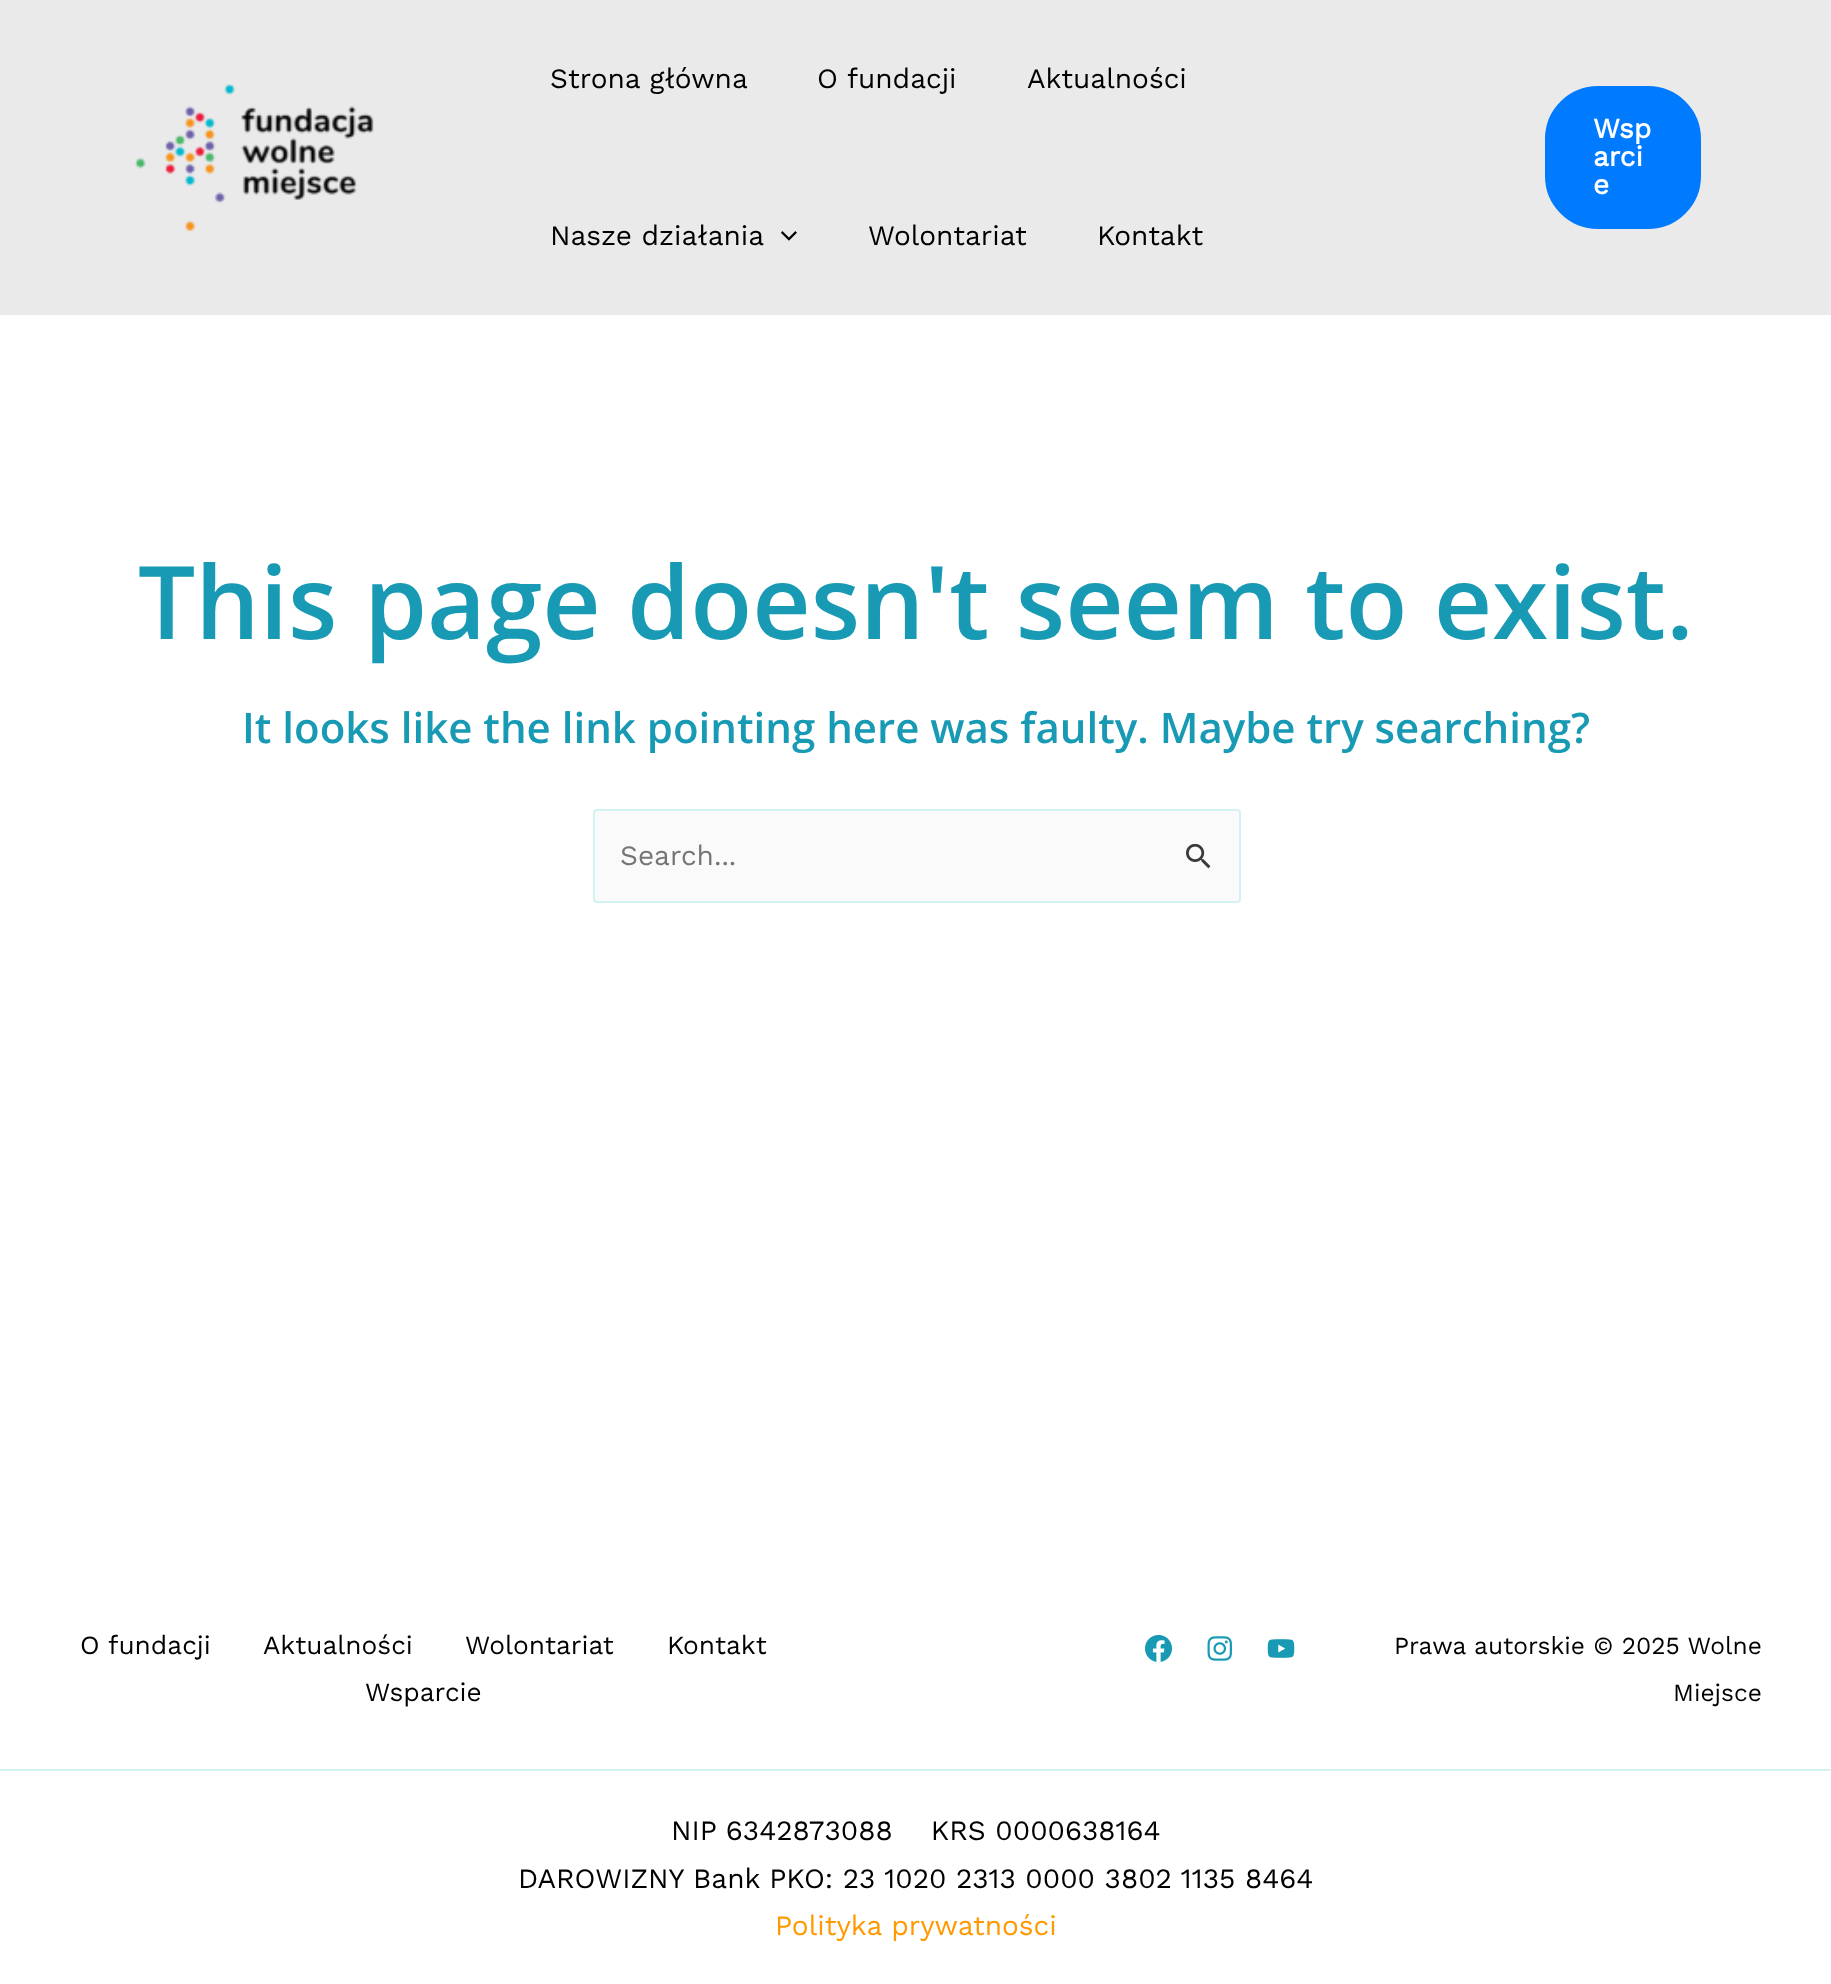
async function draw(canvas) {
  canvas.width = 1831;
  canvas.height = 1984;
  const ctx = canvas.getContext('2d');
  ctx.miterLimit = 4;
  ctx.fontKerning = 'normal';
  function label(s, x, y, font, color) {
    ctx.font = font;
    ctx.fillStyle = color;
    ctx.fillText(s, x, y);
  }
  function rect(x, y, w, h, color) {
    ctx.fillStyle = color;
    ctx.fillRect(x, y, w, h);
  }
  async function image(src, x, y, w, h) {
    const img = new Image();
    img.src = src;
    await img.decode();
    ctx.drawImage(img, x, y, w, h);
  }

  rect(0, 0, 1831, 1984, '#fff');
  rect(0, 0, 1831, 315, '#eaeaea');
  await image('assets/img1.png', 134, 84, 240, 147);
  label('Strona główna', 550, 88, '28px Work Sans', '#000');
  label('O fundacji', 817, 88, '28px Work Sans', '#000');
  label('Aktualności', 1027, 88, '28px Work Sans', '#000');
  label('Nasze działania', 550, 245, '28px Work Sans', '#000');
  await image('assets/img2.png', 781, 231, 16, 10);
  label('Wolontariat', 868, 245, '28px Work Sans', '#000');
  label('Kontakt', 1097, 245, '28px Work Sans', '#000');
  ctx.fillStyle = '#007bff';
  ctx.beginPath();
  ctx.roundRect(1546, 87, 154, 141, 52);
  ctx.fill();
  ctx.strokeStyle = '#007bff';
  ctx.lineWidth = 2;
  ctx.stroke();
  label('Wsp', 1593, 138, 'bold 28px Work Sans', '#fff');
  label('arci', 1593, 166, 'bold 28px Work Sans', '#fff');
  label('e', 1593, 194, 'bold 28px Work Sans', '#fff');
  label('This page doesn\'t seem to exist.', 138, 639, '600 101.5px Open Sans', '#189ab4');
  label('It looks like the link pointing here was faulty. Maybe try searching?', 242, 743, '600 42px Open Sans', '#189ab4');
  ctx.fillStyle = '#fafafa';
  ctx.beginPath();
  ctx.roundRect(594, 810, 646, 92, 3);
  ctx.fill();
  ctx.strokeStyle = '#d4f1f4';
  ctx.stroke();
  label('Search...', 620, 865, '28px Work Sans', '#757575');
  await image('assets/img3.png', 1186, 844, 25, 25);
  label('O fundacji', 80, 1654, '26.25px Work Sans', '#000');
  label('Aktualności', 263, 1654, '26.25px Work Sans', '#000');
  label('Wolontariat', 465, 1654, '26.25px Work Sans', '#000');
  label('Kontakt', 667, 1654, '26.25px Work Sans', '#000');
  label('Wsparcie', 365, 1701, '26.25px Work Sans', '#000');
  await image('assets/img4.png', 1145, 1635, 28, 27);
  await image('assets/img5.png', 1207, 1636, 25, 25);
  await image('assets/img6.png', 1267, 1639, 28, 19);
  label('Prawa autorskie © 2025 Wolne', 1394, 1654, '24.5px Work Sans', '#000');
  label('Miejsce', 1673, 1701, '24.5px Work Sans', '#000');
  rect(0, 1769, 1831, 2, '#d4f1f4');
  label('NIP 6342873088    KRS 0000638164', 671, 1840, '28px Work Sans', '#000');
  label('DAROWIZNY Bank PKO: 23 1020 2313 0000 3802 1135 8464', 518, 1888, '28px Work Sans', '#000');
  label('Polityka prywatności', 775, 1935, '28px Work Sans', '#f90');
}

draw(document.querySelector('canvas'));
